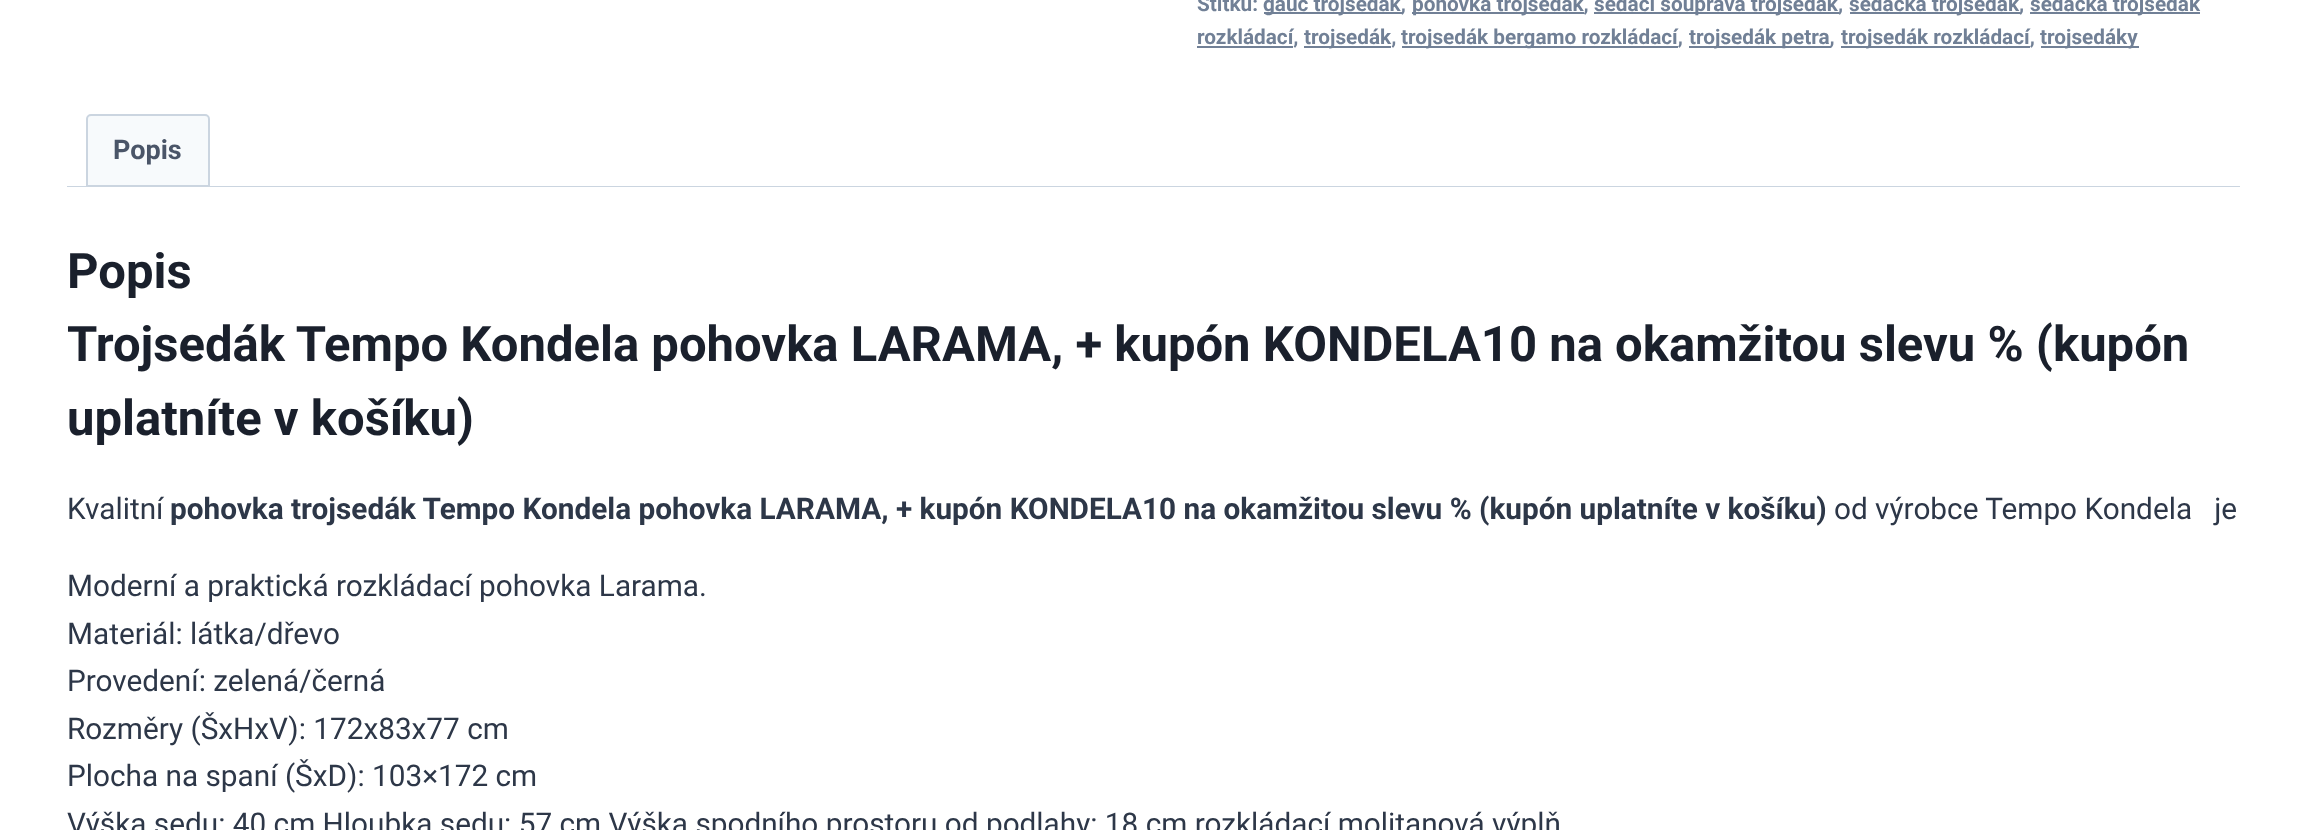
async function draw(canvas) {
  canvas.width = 2306;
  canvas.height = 830;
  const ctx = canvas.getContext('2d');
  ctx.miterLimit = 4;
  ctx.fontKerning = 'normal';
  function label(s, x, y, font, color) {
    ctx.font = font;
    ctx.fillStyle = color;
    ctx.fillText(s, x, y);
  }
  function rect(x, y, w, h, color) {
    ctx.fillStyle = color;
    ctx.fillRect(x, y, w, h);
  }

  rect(0, 0, 2306, 830, '#fff');
  label('Štítků:', 1197, 11, 'bold 20.75px Roboto', '#718096');
  rect(1264, 12, 138, 2, '#718096');
  label('gauč trojsedák,', 1263, 11, 'bold 20.75px Roboto', '#718096');
  rect(1412, 12, 172, 2, '#718096');
  label('pohovka trojsedák,', 1412, 11, 'bold 20.75px Roboto', '#718096');
  rect(1594, 12, 245, 2, '#718096');
  label('sedací souprava trojsedák,', 1594, 11, 'bold 20.75px Roboto', '#718096');
  rect(1850, 12, 170, 2, '#718096');
  label('sedačka trojsedák,', 1849, 11, 'bold 20.75px Roboto', '#718096');
  rect(2030, 12, 170, 2, '#718096');
  label('sedačka trojsedák', 2030, 11, 'bold 20.75px Roboto', '#718096');
  rect(1197, 46, 96, 2, '#718096');
  label('rozkládací,', 1197, 44, 'bold 20.75px Roboto', '#718096');
  rect(1304, 46, 87, 2, '#718096');
  label('trojsedák,', 1304, 44, 'bold 20.75px Roboto', '#718096');
  rect(1402, 46, 276, 2, '#718096');
  label('trojsedák bergamo rozkládací,', 1401, 44, 'bold 20.75px Roboto', '#718096');
  rect(1689, 46, 142, 2, '#718096');
  label('trojsedák petra,', 1689, 44, 'bold 20.75px Roboto', '#718096');
  rect(1841, 46, 189, 2, '#718096');
  label('trojsedák rozkládací,', 1841, 44, 'bold 20.75px Roboto', '#718096');
  rect(2041, 46, 98, 2, '#718096');
  label('trojsedáky', 2040, 44, 'bold 20.75px Roboto', '#718096');
  ctx.fillStyle = '#f7fafc';
  ctx.beginPath();
  ctx.roundRect(87, 115, 122, 71, [4, 4, 0, 0]);
  ctx.fill();
  ctx.strokeStyle = '#cbd5e0';
  ctx.lineWidth = 2;
  ctx.stroke();
  label('Popis', 113, 159, 'bold 27px Roboto', '#4a5568');
  rect(67, 186, 2173, 1, '#cbd5e0');
  label('Popis', 67, 288, 'bold 49px Roboto', '#1a202c');
  label('Trojsedák Tempo Kondela pohovka LARAMA, + kupón KONDELA10 na okamžitou slevu % (kupón', 67, 361, 'bold 49px Roboto', '#1a202c');
  label('uplatníte v košíku)', 67, 435, 'bold 49px Roboto', '#1a202c');
  label('Kvalitní', 67, 519, '29.75px Roboto', '#2d3748');
  label('pohovka trojsedák Tempo Kondela pohovka LARAMA, + kupón KONDELA10 na okamžitou slevu % (kupón uplatníte v košíku)', 170, 519, 'bold 29.75px Roboto', '#2d3748');
  label('od výrobce Tempo Kondela   je', 1834, 519, '29.75px Roboto', '#2d3748');
  label('Moderní a praktická rozkládací pohovka Larama.', 67, 596, '29.75px Roboto', '#2d3748');
  label('Materiál: látka/dřevo', 67, 644, '29.75px Roboto', '#2d3748');
  label('Provedení: zelená/černá', 67, 691, '29.75px Roboto', '#2d3748');
  label('Rozměry (ŠxHxV): 172x83x77 cm', 67, 739, '29.75px Roboto', '#2d3748');
  label('Plocha na spaní (ŠxD): 103×172 cm', 67, 786, '29.75px Roboto', '#2d3748');
  label('Výška sedu: 40 cm Hloubka sedu: 57 cm Výška spodního prostoru od podlahy: 18 cm rozkládací molitanová výplň', 67, 834, '29.75px Roboto', '#2d3748');
}

draw(document.querySelector('canvas'));
